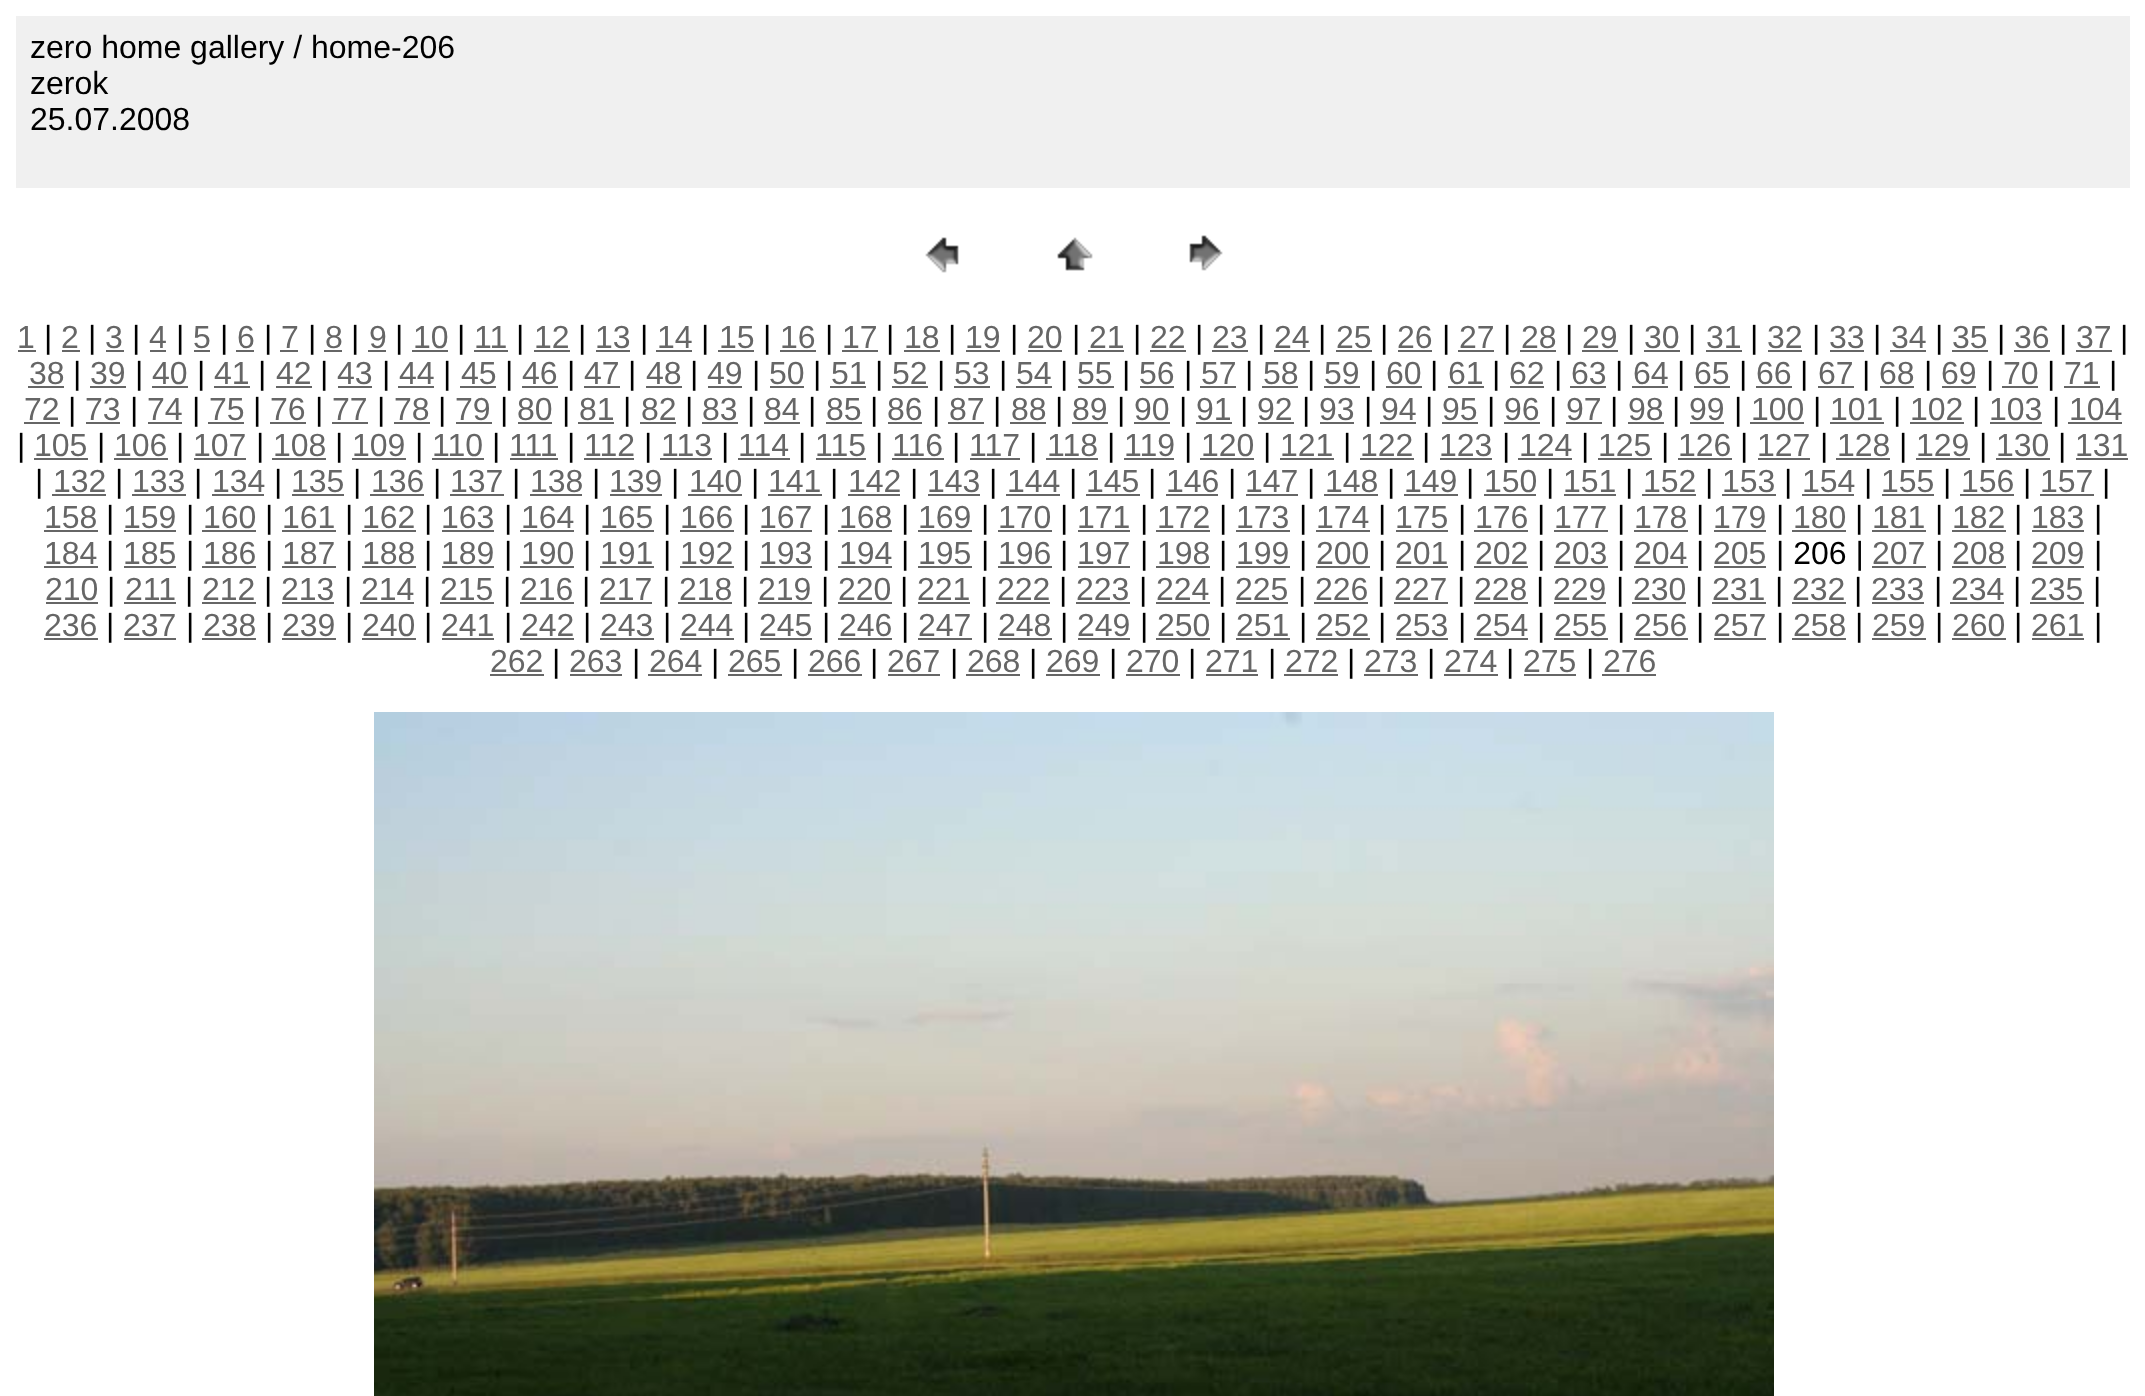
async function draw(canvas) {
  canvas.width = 2145;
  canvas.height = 1396;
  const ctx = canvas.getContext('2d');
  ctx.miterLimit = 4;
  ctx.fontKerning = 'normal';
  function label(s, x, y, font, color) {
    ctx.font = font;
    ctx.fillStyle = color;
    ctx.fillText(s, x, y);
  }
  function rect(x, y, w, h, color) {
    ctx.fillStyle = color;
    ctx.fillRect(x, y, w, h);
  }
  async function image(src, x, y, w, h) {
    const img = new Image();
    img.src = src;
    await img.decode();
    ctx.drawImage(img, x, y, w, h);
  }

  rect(0, 0, 2145, 1396, '#fff');
  rect(16, 16, 2114, 172, '#f0f0f0');
  label('zero home gallery / home-206', 30, 58, '32px Liberation Sans', '#000');
  label('zerok', 30, 94, '32px Liberation Sans', '#000');
  label('25.07.2008', 30, 130, '32px Liberation Sans', '#000');
  await image('assets/img1.png', 925, 237, 34, 36);
  await image('assets/img2.png', 1057, 237, 36, 34);
  await image('assets/img3.png', 1189, 235, 34, 36);
  label('1', 17, 348, '32px Liberation Sans', '#666');
  rect(18, 350, 18, 2, '#666');
  label('|', 44, 348, '32px Liberation Sans', '#000');
  label('2', 61, 348, '32px Liberation Sans', '#666');
  rect(62, 350, 18, 2, '#666');
  label('|', 88, 348, '32px Liberation Sans', '#000');
  label('3', 105, 348, '32px Liberation Sans', '#666');
  rect(106, 350, 18, 2, '#666');
  label('|', 132, 348, '32px Liberation Sans', '#000');
  label('4', 149, 348, '32px Liberation Sans', '#666');
  rect(150, 350, 16, 2, '#666');
  label('|', 176, 348, '32px Liberation Sans', '#000');
  label('5', 193, 348, '32px Liberation Sans', '#666');
  rect(194, 350, 16, 2, '#666');
  label('|', 220, 348, '32px Liberation Sans', '#000');
  label('6', 237, 348, '32px Liberation Sans', '#666');
  rect(236, 350, 18, 2, '#666');
  label('|', 264, 348, '32px Liberation Sans', '#000');
  label('7', 281, 348, '32px Liberation Sans', '#666');
  rect(280, 350, 18, 2, '#666');
  label('|', 308, 348, '32px Liberation Sans', '#000');
  label('8', 325, 348, '32px Liberation Sans', '#666');
  rect(324, 350, 18, 2, '#666');
  label('|', 351, 348, '32px Liberation Sans', '#000');
  label('9', 369, 348, '32px Liberation Sans', '#666');
  rect(368, 350, 18, 2, '#666');
  label('|', 395, 348, '32px Liberation Sans', '#000');
  label('10', 413, 348, '32px Liberation Sans', '#666');
  rect(412, 350, 36, 2, '#666');
  label('|', 457, 348, '32px Liberation Sans', '#000');
  label('11', 474, 348, '32px Liberation Sans', '#666');
  rect(474, 350, 34, 2, '#666');
  label('|', 516, 348, '32px Liberation Sans', '#000');
  label('12', 534, 348, '32px Liberation Sans', '#666');
  rect(534, 350, 36, 2, '#666');
  label('|', 578, 348, '32px Liberation Sans', '#000');
  label('13', 595, 348, '32px Liberation Sans', '#666');
  rect(596, 350, 34, 2, '#666');
  label('|', 640, 348, '32px Liberation Sans', '#000');
  label('14', 657, 348, '32px Liberation Sans', '#666');
  rect(656, 350, 36, 2, '#666');
  label('|', 701, 348, '32px Liberation Sans', '#000');
  label('15', 719, 348, '32px Liberation Sans', '#666');
  rect(718, 350, 36, 2, '#666');
  label('|', 763, 348, '32px Liberation Sans', '#000');
  label('16', 780, 348, '32px Liberation Sans', '#666');
  rect(780, 350, 36, 2, '#666');
  label('|', 825, 348, '32px Liberation Sans', '#000');
  label('17', 842, 348, '32px Liberation Sans', '#666');
  rect(842, 350, 36, 2, '#666');
  label('|', 886, 348, '32px Liberation Sans', '#000');
  label('18', 904, 348, '32px Liberation Sans', '#666');
  rect(904, 350, 36, 2, '#666');
  label('|', 948, 348, '32px Liberation Sans', '#000');
  label('19', 965, 348, '32px Liberation Sans', '#666');
  rect(966, 350, 34, 2, '#666');
  label('|', 1010, 348, '32px Liberation Sans', '#000');
  label('20', 1027, 348, '32px Liberation Sans', '#666');
  rect(1028, 350, 34, 2, '#666');
  label('|', 1072, 348, '32px Liberation Sans', '#000');
  label('21', 1089, 348, '32px Liberation Sans', '#666');
  rect(1088, 350, 36, 2, '#666');
  label('|', 1133, 348, '32px Liberation Sans', '#000');
  label('22', 1150, 348, '32px Liberation Sans', '#666');
  rect(1150, 350, 36, 2, '#666');
  label('|', 1195, 348, '32px Liberation Sans', '#000');
  label('23', 1212, 348, '32px Liberation Sans', '#666');
  rect(1212, 350, 36, 2, '#666');
  label('|', 1257, 348, '32px Liberation Sans', '#000');
  label('24', 1274, 348, '32px Liberation Sans', '#666');
  rect(1274, 350, 36, 2, '#666');
  label('|', 1318, 348, '32px Liberation Sans', '#000');
  label('25', 1336, 348, '32px Liberation Sans', '#666');
  rect(1336, 350, 36, 2, '#666');
  label('|', 1380, 348, '32px Liberation Sans', '#000');
  label('26', 1397, 348, '32px Liberation Sans', '#666');
  rect(1398, 350, 34, 2, '#666');
  label('|', 1442, 348, '32px Liberation Sans', '#000');
  label('27', 1459, 348, '32px Liberation Sans', '#666');
  rect(1458, 350, 36, 2, '#666');
  label('|', 1503, 348, '32px Liberation Sans', '#000');
  label('28', 1521, 348, '32px Liberation Sans', '#666');
  rect(1520, 350, 36, 2, '#666');
  label('|', 1565, 348, '32px Liberation Sans', '#000');
  label('29', 1582, 348, '32px Liberation Sans', '#666');
  rect(1582, 350, 36, 2, '#666');
  label('|', 1627, 348, '32px Liberation Sans', '#000');
  label('30', 1644, 348, '32px Liberation Sans', '#666');
  rect(1644, 350, 36, 2, '#666');
  label('|', 1688, 348, '32px Liberation Sans', '#000');
  label('31', 1706, 348, '32px Liberation Sans', '#666');
  rect(1706, 350, 36, 2, '#666');
  label('|', 1750, 348, '32px Liberation Sans', '#000');
  label('32', 1767, 348, '32px Liberation Sans', '#666');
  rect(1768, 350, 34, 2, '#666');
  label('|', 1812, 348, '32px Liberation Sans', '#000');
  label('33', 1829, 348, '32px Liberation Sans', '#666');
  rect(1830, 350, 34, 2, '#666');
  label('|', 1873, 348, '32px Liberation Sans', '#000');
  label('34', 1891, 348, '32px Liberation Sans', '#666');
  rect(1890, 350, 36, 2, '#666');
  label('|', 1935, 348, '32px Liberation Sans', '#000');
  label('35', 1952, 348, '32px Liberation Sans', '#666');
  rect(1952, 350, 36, 2, '#666');
  label('|', 1997, 348, '32px Liberation Sans', '#000');
  label('36', 2014, 348, '32px Liberation Sans', '#666');
  rect(2014, 350, 36, 2, '#666');
  label('|', 2059, 348, '32px Liberation Sans', '#000');
  label('37', 2076, 348, '32px Liberation Sans', '#666');
  rect(2076, 350, 36, 2, '#666');
  label('|', 2120, 348, '32px Liberation Sans', '#000');
  label('38', 29, 384, '32px Liberation Sans', '#666');
  rect(28, 386, 36, 2, '#666');
  label('|', 73, 384, '32px Liberation Sans', '#000');
  label('39', 90, 384, '32px Liberation Sans', '#666');
  rect(90, 386, 36, 2, '#666');
  label('|', 135, 384, '32px Liberation Sans', '#000');
  label('40', 152, 384, '32px Liberation Sans', '#666');
  rect(152, 386, 36, 2, '#666');
  label('|', 197, 384, '32px Liberation Sans', '#000');
  label('41', 214, 384, '32px Liberation Sans', '#666');
  rect(214, 386, 36, 2, '#666');
  label('|', 258, 384, '32px Liberation Sans', '#000');
  label('42', 276, 384, '32px Liberation Sans', '#666');
  rect(276, 386, 36, 2, '#666');
  label('|', 320, 384, '32px Liberation Sans', '#000');
  label('43', 337, 384, '32px Liberation Sans', '#666');
  rect(338, 386, 34, 2, '#666');
  label('|', 382, 384, '32px Liberation Sans', '#000');
  label('44', 399, 384, '32px Liberation Sans', '#666');
  rect(398, 386, 36, 2, '#666');
  label('|', 443, 384, '32px Liberation Sans', '#000');
  label('45', 461, 384, '32px Liberation Sans', '#666');
  rect(460, 386, 36, 2, '#666');
  label('|', 505, 384, '32px Liberation Sans', '#000');
  label('46', 522, 384, '32px Liberation Sans', '#666');
  rect(522, 386, 36, 2, '#666');
  label('|', 567, 384, '32px Liberation Sans', '#000');
  label('47', 584, 384, '32px Liberation Sans', '#666');
  rect(584, 386, 36, 2, '#666');
  label('|', 628, 384, '32px Liberation Sans', '#000');
  label('48', 646, 384, '32px Liberation Sans', '#666');
  rect(646, 386, 36, 2, '#666');
  label('|', 690, 384, '32px Liberation Sans', '#000');
  label('49', 707, 384, '32px Liberation Sans', '#666');
  rect(708, 386, 34, 2, '#666');
  label('|', 752, 384, '32px Liberation Sans', '#000');
  label('50', 769, 384, '32px Liberation Sans', '#666');
  rect(770, 386, 34, 2, '#666');
  label('|', 813, 384, '32px Liberation Sans', '#000');
  label('51', 831, 384, '32px Liberation Sans', '#666');
  rect(830, 386, 36, 2, '#666');
  label('|', 875, 384, '32px Liberation Sans', '#000');
  label('52', 892, 384, '32px Liberation Sans', '#666');
  rect(892, 386, 36, 2, '#666');
  label('|', 937, 384, '32px Liberation Sans', '#000');
  label('53', 954, 384, '32px Liberation Sans', '#666');
  rect(954, 386, 36, 2, '#666');
  label('|', 999, 384, '32px Liberation Sans', '#000');
  label('54', 1016, 384, '32px Liberation Sans', '#666');
  rect(1016, 386, 36, 2, '#666');
  label('|', 1060, 384, '32px Liberation Sans', '#000');
  label('55', 1077, 384, '32px Liberation Sans', '#666');
  rect(1078, 386, 36, 2, '#666');
  label('|', 1122, 384, '32px Liberation Sans', '#000');
  label('56', 1139, 384, '32px Liberation Sans', '#666');
  rect(1140, 386, 34, 2, '#666');
  label('|', 1184, 384, '32px Liberation Sans', '#000');
  label('57', 1201, 384, '32px Liberation Sans', '#666');
  rect(1200, 386, 36, 2, '#666');
  label('|', 1245, 384, '32px Liberation Sans', '#000');
  label('58', 1263, 384, '32px Liberation Sans', '#666');
  rect(1262, 386, 36, 2, '#666');
  label('|', 1307, 384, '32px Liberation Sans', '#000');
  label('59', 1324, 384, '32px Liberation Sans', '#666');
  rect(1324, 386, 36, 2, '#666');
  label('|', 1369, 384, '32px Liberation Sans', '#000');
  label('60', 1386, 384, '32px Liberation Sans', '#666');
  rect(1386, 386, 36, 2, '#666');
  label('|', 1430, 384, '32px Liberation Sans', '#000');
  label('61', 1448, 384, '32px Liberation Sans', '#666');
  rect(1448, 386, 36, 2, '#666');
  label('|', 1492, 384, '32px Liberation Sans', '#000');
  label('62', 1509, 384, '32px Liberation Sans', '#666');
  rect(1510, 386, 34, 2, '#666');
  label('|', 1554, 384, '32px Liberation Sans', '#000');
  label('63', 1571, 384, '32px Liberation Sans', '#666');
  rect(1570, 386, 36, 2, '#666');
  label('|', 1615, 384, '32px Liberation Sans', '#000');
  label('64', 1633, 384, '32px Liberation Sans', '#666');
  rect(1632, 386, 36, 2, '#666');
  label('|', 1677, 384, '32px Liberation Sans', '#000');
  label('65', 1694, 384, '32px Liberation Sans', '#666');
  rect(1694, 386, 36, 2, '#666');
  label('|', 1739, 384, '32px Liberation Sans', '#000');
  label('66', 1756, 384, '32px Liberation Sans', '#666');
  rect(1756, 386, 36, 2, '#666');
  label('|', 1800, 384, '32px Liberation Sans', '#000');
  label('67', 1818, 384, '32px Liberation Sans', '#666');
  rect(1818, 386, 36, 2, '#666');
  label('|', 1862, 384, '32px Liberation Sans', '#000');
  label('68', 1879, 384, '32px Liberation Sans', '#666');
  rect(1880, 386, 34, 2, '#666');
  label('|', 1924, 384, '32px Liberation Sans', '#000');
  label('69', 1941, 384, '32px Liberation Sans', '#666');
  rect(1942, 386, 34, 2, '#666');
  label('|', 1986, 384, '32px Liberation Sans', '#000');
  label('70', 2003, 384, '32px Liberation Sans', '#666');
  rect(2002, 386, 36, 2, '#666');
  label('|', 2047, 384, '32px Liberation Sans', '#000');
  label('71', 2064, 384, '32px Liberation Sans', '#666');
  rect(2064, 386, 36, 2, '#666');
  label('|', 2109, 384, '32px Liberation Sans', '#000');
  label('72', 24, 420, '32px Liberation Sans', '#666');
  rect(24, 422, 36, 2, '#666');
  label('|', 68, 420, '32px Liberation Sans', '#000');
  label('73', 85, 420, '32px Liberation Sans', '#666');
  rect(86, 422, 34, 2, '#666');
  label('|', 130, 420, '32px Liberation Sans', '#000');
  label('74', 147, 420, '32px Liberation Sans', '#666');
  rect(148, 422, 34, 2, '#666');
  label('|', 192, 420, '32px Liberation Sans', '#000');
  label('75', 209, 420, '32px Liberation Sans', '#666');
  rect(208, 422, 36, 2, '#666');
  label('|', 253, 420, '32px Liberation Sans', '#000');
  label('76', 270, 420, '32px Liberation Sans', '#666');
  rect(270, 422, 36, 2, '#666');
  label('|', 315, 420, '32px Liberation Sans', '#000');
  label('77', 332, 420, '32px Liberation Sans', '#666');
  rect(332, 422, 36, 2, '#666');
  label('|', 377, 420, '32px Liberation Sans', '#000');
  label('78', 394, 420, '32px Liberation Sans', '#666');
  rect(394, 422, 36, 2, '#666');
  label('|', 438, 420, '32px Liberation Sans', '#000');
  label('79', 455, 420, '32px Liberation Sans', '#666');
  rect(456, 422, 36, 2, '#666');
  label('|', 500, 420, '32px Liberation Sans', '#000');
  label('80', 517, 420, '32px Liberation Sans', '#666');
  rect(518, 422, 34, 2, '#666');
  label('|', 562, 420, '32px Liberation Sans', '#000');
  label('81', 579, 420, '32px Liberation Sans', '#666');
  rect(578, 422, 36, 2, '#666');
  label('|', 623, 420, '32px Liberation Sans', '#000');
  label('82', 641, 420, '32px Liberation Sans', '#666');
  rect(640, 422, 36, 2, '#666');
  label('|', 685, 420, '32px Liberation Sans', '#000');
  label('83', 702, 420, '32px Liberation Sans', '#666');
  rect(702, 422, 36, 2, '#666');
  label('|', 747, 420, '32px Liberation Sans', '#000');
  label('84', 764, 420, '32px Liberation Sans', '#666');
  rect(764, 422, 36, 2, '#666');
  label('|', 808, 420, '32px Liberation Sans', '#000');
  label('85', 826, 420, '32px Liberation Sans', '#666');
  rect(826, 422, 36, 2, '#666');
  label('|', 870, 420, '32px Liberation Sans', '#000');
  label('86', 887, 420, '32px Liberation Sans', '#666');
  rect(888, 422, 34, 2, '#666');
  label('|', 932, 420, '32px Liberation Sans', '#000');
  label('87', 949, 420, '32px Liberation Sans', '#666');
  rect(948, 422, 36, 2, '#666');
  label('|', 993, 420, '32px Liberation Sans', '#000');
  label('88', 1011, 420, '32px Liberation Sans', '#666');
  rect(1010, 422, 36, 2, '#666');
  label('|', 1055, 420, '32px Liberation Sans', '#000');
  label('89', 1072, 420, '32px Liberation Sans', '#666');
  rect(1072, 422, 36, 2, '#666');
  label('|', 1117, 420, '32px Liberation Sans', '#000');
  label('90', 1134, 420, '32px Liberation Sans', '#666');
  rect(1134, 422, 36, 2, '#666');
  label('|', 1179, 420, '32px Liberation Sans', '#000');
  label('91', 1196, 420, '32px Liberation Sans', '#666');
  rect(1196, 422, 36, 2, '#666');
  label('|', 1240, 420, '32px Liberation Sans', '#000');
  label('92', 1257, 420, '32px Liberation Sans', '#666');
  rect(1258, 422, 36, 2, '#666');
  label('|', 1302, 420, '32px Liberation Sans', '#000');
  label('93', 1319, 420, '32px Liberation Sans', '#666');
  rect(1320, 422, 34, 2, '#666');
  label('|', 1364, 420, '32px Liberation Sans', '#000');
  label('94', 1381, 420, '32px Liberation Sans', '#666');
  rect(1380, 422, 36, 2, '#666');
  label('|', 1425, 420, '32px Liberation Sans', '#000');
  label('95', 1442, 420, '32px Liberation Sans', '#666');
  rect(1442, 422, 36, 2, '#666');
  label('|', 1487, 420, '32px Liberation Sans', '#000');
  label('96', 1504, 420, '32px Liberation Sans', '#666');
  rect(1504, 422, 36, 2, '#666');
  label('|', 1549, 420, '32px Liberation Sans', '#000');
  label('97', 1566, 420, '32px Liberation Sans', '#666');
  rect(1566, 422, 36, 2, '#666');
  label('|', 1610, 420, '32px Liberation Sans', '#000');
  label('98', 1628, 420, '32px Liberation Sans', '#666');
  rect(1628, 422, 36, 2, '#666');
  label('|', 1672, 420, '32px Liberation Sans', '#000');
  label('99', 1689, 420, '32px Liberation Sans', '#666');
  rect(1690, 422, 34, 2, '#666');
  label('|', 1734, 420, '32px Liberation Sans', '#000');
  label('100', 1751, 420, '32px Liberation Sans', '#666');
  rect(1750, 422, 54, 2, '#666');
  label('|', 1813, 420, '32px Liberation Sans', '#000');
  label('101', 1830, 420, '32px Liberation Sans', '#666');
  rect(1830, 422, 54, 2, '#666');
  label('|', 1893, 420, '32px Liberation Sans', '#000');
  label('102', 1910, 420, '32px Liberation Sans', '#666');
  rect(1910, 422, 54, 2, '#666');
  label('|', 1972, 420, '32px Liberation Sans', '#000');
  label('103', 1989, 420, '32px Liberation Sans', '#666');
  rect(1990, 422, 52, 2, '#666');
  label('|', 2052, 420, '32px Liberation Sans', '#000');
  label('104', 2069, 420, '32px Liberation Sans', '#666');
  rect(2068, 422, 54, 2, '#666');
  label('|', 17, 456, '32px Liberation Sans', '#000');
  label('105', 34, 456, '32px Liberation Sans', '#666');
  rect(34, 458, 54, 2, '#666');
  label('|', 97, 456, '32px Liberation Sans', '#000');
  label('106', 114, 456, '32px Liberation Sans', '#666');
  rect(114, 458, 54, 2, '#666');
  label('|', 176, 456, '32px Liberation Sans', '#000');
  label('107', 193, 456, '32px Liberation Sans', '#666');
  rect(194, 458, 52, 2, '#666');
  label('|', 256, 456, '32px Liberation Sans', '#000');
  label('108', 273, 456, '32px Liberation Sans', '#666');
  rect(272, 458, 54, 2, '#666');
  label('|', 335, 456, '32px Liberation Sans', '#000');
  label('109', 352, 456, '32px Liberation Sans', '#666');
  rect(352, 458, 54, 2, '#666');
  label('|', 415, 456, '32px Liberation Sans', '#000');
  label('110', 432, 456, '32px Liberation Sans', '#666');
  rect(432, 458, 52, 2, '#666');
  label('|', 492, 456, '32px Liberation Sans', '#000');
  label('111', 509, 456, '32px Liberation Sans', '#666');
  rect(510, 458, 48, 2, '#666');
  label('|', 567, 456, '32px Liberation Sans', '#000');
  label('112', 584, 456, '32px Liberation Sans', '#666');
  rect(584, 458, 50, 2, '#666');
  label('|', 644, 456, '32px Liberation Sans', '#000');
  label('113', 661, 456, '32px Liberation Sans', '#666');
  rect(660, 458, 52, 2, '#666');
  label('|', 721, 456, '32px Liberation Sans', '#000');
  label('114', 738, 456, '32px Liberation Sans', '#666');
  rect(738, 458, 52, 2, '#666');
  label('|', 798, 456, '32px Liberation Sans', '#000');
  label('115', 815, 456, '32px Liberation Sans', '#666');
  rect(816, 458, 50, 2, '#666');
  label('|', 875, 456, '32px Liberation Sans', '#000');
  label('116', 892, 456, '32px Liberation Sans', '#666');
  rect(892, 458, 52, 2, '#666');
  label('|', 952, 456, '32px Liberation Sans', '#000');
  label('117', 969, 456, '32px Liberation Sans', '#666');
  rect(970, 458, 50, 2, '#666');
  label('|', 1029, 456, '32px Liberation Sans', '#000');
  label('118', 1047, 456, '32px Liberation Sans', '#666');
  rect(1046, 458, 52, 2, '#666');
  label('|', 1107, 456, '32px Liberation Sans', '#000');
  label('119', 1124, 456, '32px Liberation Sans', '#666');
  rect(1124, 458, 50, 2, '#666');
  label('|', 1184, 456, '32px Liberation Sans', '#000');
  label('120', 1201, 456, '32px Liberation Sans', '#666');
  rect(1200, 458, 54, 2, '#666');
  label('|', 1263, 456, '32px Liberation Sans', '#000');
  label('121', 1280, 456, '32px Liberation Sans', '#666');
  rect(1280, 458, 54, 2, '#666');
  label('|', 1343, 456, '32px Liberation Sans', '#000');
  label('122', 1360, 456, '32px Liberation Sans', '#666');
  rect(1360, 458, 54, 2, '#666');
  label('|', 1422, 456, '32px Liberation Sans', '#000');
  label('123', 1439, 456, '32px Liberation Sans', '#666');
  rect(1440, 458, 52, 2, '#666');
  label('|', 1502, 456, '32px Liberation Sans', '#000');
  label('124', 1519, 456, '32px Liberation Sans', '#666');
  rect(1518, 458, 54, 2, '#666');
  label('|', 1581, 456, '32px Liberation Sans', '#000');
  label('125', 1598, 456, '32px Liberation Sans', '#666');
  rect(1598, 458, 54, 2, '#666');
  label('|', 1661, 456, '32px Liberation Sans', '#000');
  label('126', 1678, 456, '32px Liberation Sans', '#666');
  rect(1678, 458, 54, 2, '#666');
  label('|', 1740, 456, '32px Liberation Sans', '#000');
  label('127', 1757, 456, '32px Liberation Sans', '#666');
  rect(1758, 458, 52, 2, '#666');
  label('|', 1820, 456, '32px Liberation Sans', '#000');
  label('128', 1837, 456, '32px Liberation Sans', '#666');
  rect(1836, 458, 54, 2, '#666');
  label('|', 1899, 456, '32px Liberation Sans', '#000');
  label('129', 1916, 456, '32px Liberation Sans', '#666');
  rect(1916, 458, 54, 2, '#666');
  label('|', 1979, 456, '32px Liberation Sans', '#000');
  label('130', 1996, 456, '32px Liberation Sans', '#666');
  rect(1996, 458, 54, 2, '#666');
  label('|', 2058, 456, '32px Liberation Sans', '#000');
  label('131', 2075, 456, '32px Liberation Sans', '#666');
  rect(2076, 458, 52, 2, '#666');
  label('|', 35, 492, '32px Liberation Sans', '#000');
  label('132', 53, 492, '32px Liberation Sans', '#666');
  rect(52, 494, 54, 2, '#666');
  label('|', 115, 492, '32px Liberation Sans', '#000');
  label('133', 132, 492, '32px Liberation Sans', '#666');
  rect(132, 494, 54, 2, '#666');
  label('|', 194, 492, '32px Liberation Sans', '#000');
  label('134', 212, 492, '32px Liberation Sans', '#666');
  rect(212, 494, 52, 2, '#666');
  label('|', 274, 492, '32px Liberation Sans', '#000');
  label('135', 291, 492, '32px Liberation Sans', '#666');
  rect(292, 494, 52, 2, '#666');
  label('|', 353, 492, '32px Liberation Sans', '#000');
  label('136', 371, 492, '32px Liberation Sans', '#666');
  rect(370, 494, 54, 2, '#666');
  label('|', 433, 492, '32px Liberation Sans', '#000');
  label('137', 450, 492, '32px Liberation Sans', '#666');
  rect(450, 494, 54, 2, '#666');
  label('|', 512, 492, '32px Liberation Sans', '#000');
  label('138', 530, 492, '32px Liberation Sans', '#666');
  rect(530, 494, 52, 2, '#666');
  label('|', 592, 492, '32px Liberation Sans', '#000');
  label('139', 609, 492, '32px Liberation Sans', '#666');
  rect(610, 494, 52, 2, '#666');
  label('|', 671, 492, '32px Liberation Sans', '#000');
  label('140', 689, 492, '32px Liberation Sans', '#666');
  rect(688, 494, 54, 2, '#666');
  label('|', 751, 492, '32px Liberation Sans', '#000');
  label('141', 768, 492, '32px Liberation Sans', '#666');
  rect(768, 494, 54, 2, '#666');
  label('|', 830, 492, '32px Liberation Sans', '#000');
  label('142', 848, 492, '32px Liberation Sans', '#666');
  rect(848, 494, 52, 2, '#666');
  label('|', 910, 492, '32px Liberation Sans', '#000');
  label('143', 927, 492, '32px Liberation Sans', '#666');
  rect(928, 494, 52, 2, '#666');
  label('|', 989, 492, '32px Liberation Sans', '#000');
  label('144', 1007, 492, '32px Liberation Sans', '#666');
  rect(1006, 494, 54, 2, '#666');
  label('|', 1069, 492, '32px Liberation Sans', '#000');
  label('145', 1086, 492, '32px Liberation Sans', '#666');
  rect(1086, 494, 54, 2, '#666');
  label('|', 1148, 492, '32px Liberation Sans', '#000');
  label('146', 1166, 492, '32px Liberation Sans', '#666');
  rect(1166, 494, 52, 2, '#666');
  label('|', 1228, 492, '32px Liberation Sans', '#000');
  label('147', 1245, 492, '32px Liberation Sans', '#666');
  rect(1246, 494, 52, 2, '#666');
  label('|', 1307, 492, '32px Liberation Sans', '#000');
  label('148', 1325, 492, '32px Liberation Sans', '#666');
  rect(1324, 494, 54, 2, '#666');
  label('|', 1387, 492, '32px Liberation Sans', '#000');
  label('149', 1404, 492, '32px Liberation Sans', '#666');
  rect(1404, 494, 54, 2, '#666');
  label('|', 1466, 492, '32px Liberation Sans', '#000');
  label('150', 1484, 492, '32px Liberation Sans', '#666');
  rect(1484, 494, 52, 2, '#666');
  label('|', 1546, 492, '32px Liberation Sans', '#000');
  label('151', 1563, 492, '32px Liberation Sans', '#666');
  rect(1564, 494, 52, 2, '#666');
  label('|', 1625, 492, '32px Liberation Sans', '#000');
  label('152', 1643, 492, '32px Liberation Sans', '#666');
  rect(1642, 494, 54, 2, '#666');
  label('|', 1705, 492, '32px Liberation Sans', '#000');
  label('153', 1722, 492, '32px Liberation Sans', '#666');
  rect(1722, 494, 54, 2, '#666');
  label('|', 1784, 492, '32px Liberation Sans', '#000');
  label('154', 1802, 492, '32px Liberation Sans', '#666');
  rect(1802, 494, 52, 2, '#666');
  label('|', 1864, 492, '32px Liberation Sans', '#000');
  label('155', 1881, 492, '32px Liberation Sans', '#666');
  rect(1882, 494, 52, 2, '#666');
  label('|', 1943, 492, '32px Liberation Sans', '#000');
  label('156', 1961, 492, '32px Liberation Sans', '#666');
  rect(1960, 494, 54, 2, '#666');
  label('|', 2023, 492, '32px Liberation Sans', '#000');
  label('157', 2040, 492, '32px Liberation Sans', '#666');
  rect(2040, 494, 54, 2, '#666');
  label('|', 2102, 492, '32px Liberation Sans', '#000');
  label('158', 44, 528, '32px Liberation Sans', '#666');
  rect(44, 530, 54, 2, '#666');
  label('|', 106, 528, '32px Liberation Sans', '#000');
  label('159', 123, 528, '32px Liberation Sans', '#666');
  rect(124, 530, 52, 2, '#666');
  label('|', 186, 528, '32px Liberation Sans', '#000');
  label('160', 203, 528, '32px Liberation Sans', '#666');
  rect(202, 530, 54, 2, '#666');
  label('|', 265, 528, '32px Liberation Sans', '#000');
  label('161', 282, 528, '32px Liberation Sans', '#666');
  rect(282, 530, 54, 2, '#666');
  label('|', 345, 528, '32px Liberation Sans', '#000');
  label('162', 362, 528, '32px Liberation Sans', '#666');
  rect(362, 530, 54, 2, '#666');
  label('|', 424, 528, '32px Liberation Sans', '#000');
  label('163', 441, 528, '32px Liberation Sans', '#666');
  rect(442, 530, 52, 2, '#666');
  label('|', 504, 528, '32px Liberation Sans', '#000');
  label('164', 521, 528, '32px Liberation Sans', '#666');
  rect(520, 530, 54, 2, '#666');
  label('|', 583, 528, '32px Liberation Sans', '#000');
  label('165', 600, 528, '32px Liberation Sans', '#666');
  rect(600, 530, 54, 2, '#666');
  label('|', 663, 528, '32px Liberation Sans', '#000');
  label('166', 680, 528, '32px Liberation Sans', '#666');
  rect(680, 530, 54, 2, '#666');
  label('|', 742, 528, '32px Liberation Sans', '#000');
  label('167', 759, 528, '32px Liberation Sans', '#666');
  rect(760, 530, 52, 2, '#666');
  label('|', 822, 528, '32px Liberation Sans', '#000');
  label('168', 839, 528, '32px Liberation Sans', '#666');
  rect(838, 530, 54, 2, '#666');
  label('|', 901, 528, '32px Liberation Sans', '#000');
  label('169', 918, 528, '32px Liberation Sans', '#666');
  rect(918, 530, 54, 2, '#666');
  label('|', 981, 528, '32px Liberation Sans', '#000');
  label('170', 998, 528, '32px Liberation Sans', '#666');
  rect(998, 530, 54, 2, '#666');
  label('|', 1060, 528, '32px Liberation Sans', '#000');
  label('171', 1077, 528, '32px Liberation Sans', '#666');
  rect(1078, 530, 52, 2, '#666');
  label('|', 1140, 528, '32px Liberation Sans', '#000');
  label('172', 1157, 528, '32px Liberation Sans', '#666');
  rect(1156, 530, 54, 2, '#666');
  label('|', 1219, 528, '32px Liberation Sans', '#000');
  label('173', 1236, 528, '32px Liberation Sans', '#666');
  rect(1236, 530, 54, 2, '#666');
  label('|', 1299, 528, '32px Liberation Sans', '#000');
  label('174', 1316, 528, '32px Liberation Sans', '#666');
  rect(1316, 530, 54, 2, '#666');
  label('|', 1378, 528, '32px Liberation Sans', '#000');
  label('175', 1395, 528, '32px Liberation Sans', '#666');
  rect(1396, 530, 52, 2, '#666');
  label('|', 1458, 528, '32px Liberation Sans', '#000');
  label('176', 1475, 528, '32px Liberation Sans', '#666');
  rect(1474, 530, 54, 2, '#666');
  label('|', 1537, 528, '32px Liberation Sans', '#000');
  label('177', 1554, 528, '32px Liberation Sans', '#666');
  rect(1554, 530, 54, 2, '#666');
  label('|', 1617, 528, '32px Liberation Sans', '#000');
  label('178', 1634, 528, '32px Liberation Sans', '#666');
  rect(1634, 530, 54, 2, '#666');
  label('|', 1696, 528, '32px Liberation Sans', '#000');
  label('179', 1713, 528, '32px Liberation Sans', '#666');
  rect(1714, 530, 52, 2, '#666');
  label('|', 1776, 528, '32px Liberation Sans', '#000');
  label('180', 1793, 528, '32px Liberation Sans', '#666');
  rect(1792, 530, 54, 2, '#666');
  label('|', 1855, 528, '32px Liberation Sans', '#000');
  label('181', 1872, 528, '32px Liberation Sans', '#666');
  rect(1872, 530, 54, 2, '#666');
  label('|', 1935, 528, '32px Liberation Sans', '#000');
  label('182', 1952, 528, '32px Liberation Sans', '#666');
  rect(1952, 530, 54, 2, '#666');
  label('|', 2014, 528, '32px Liberation Sans', '#000');
  label('183', 2031, 528, '32px Liberation Sans', '#666');
  rect(2032, 530, 52, 2, '#666');
  label('|', 2094, 528, '32px Liberation Sans', '#000');
  label('184', 44, 564, '32px Liberation Sans', '#666');
  rect(44, 566, 54, 2, '#666');
  label('|', 106, 564, '32px Liberation Sans', '#000');
  label('185', 123, 564, '32px Liberation Sans', '#666');
  rect(124, 566, 52, 2, '#666');
  label('|', 186, 564, '32px Liberation Sans', '#000');
  label('186', 203, 564, '32px Liberation Sans', '#666');
  rect(202, 566, 54, 2, '#666');
  label('|', 265, 564, '32px Liberation Sans', '#000');
  label('187', 282, 564, '32px Liberation Sans', '#666');
  rect(282, 566, 54, 2, '#666');
  label('|', 345, 564, '32px Liberation Sans', '#000');
  label('188', 362, 564, '32px Liberation Sans', '#666');
  rect(362, 566, 54, 2, '#666');
  label('|', 424, 564, '32px Liberation Sans', '#000');
  label('189', 441, 564, '32px Liberation Sans', '#666');
  rect(442, 566, 52, 2, '#666');
  label('|', 504, 564, '32px Liberation Sans', '#000');
  label('190', 521, 564, '32px Liberation Sans', '#666');
  rect(520, 566, 54, 2, '#666');
  label('|', 583, 564, '32px Liberation Sans', '#000');
  label('191', 600, 564, '32px Liberation Sans', '#666');
  rect(600, 566, 54, 2, '#666');
  label('|', 663, 564, '32px Liberation Sans', '#000');
  label('192', 680, 564, '32px Liberation Sans', '#666');
  rect(680, 566, 54, 2, '#666');
  label('|', 742, 564, '32px Liberation Sans', '#000');
  label('193', 759, 564, '32px Liberation Sans', '#666');
  rect(760, 566, 52, 2, '#666');
  label('|', 822, 564, '32px Liberation Sans', '#000');
  label('194', 839, 564, '32px Liberation Sans', '#666');
  rect(838, 566, 54, 2, '#666');
  label('|', 901, 564, '32px Liberation Sans', '#000');
  label('195', 918, 564, '32px Liberation Sans', '#666');
  rect(918, 566, 54, 2, '#666');
  label('|', 981, 564, '32px Liberation Sans', '#000');
  label('196', 998, 564, '32px Liberation Sans', '#666');
  rect(998, 566, 54, 2, '#666');
  label('|', 1060, 564, '32px Liberation Sans', '#000');
  label('197', 1077, 564, '32px Liberation Sans', '#666');
  rect(1078, 566, 52, 2, '#666');
  label('|', 1140, 564, '32px Liberation Sans', '#000');
  label('198', 1157, 564, '32px Liberation Sans', '#666');
  rect(1156, 566, 54, 2, '#666');
  label('|', 1219, 564, '32px Liberation Sans', '#000');
  label('199', 1236, 564, '32px Liberation Sans', '#666');
  rect(1236, 566, 54, 2, '#666');
  label('|', 1299, 564, '32px Liberation Sans', '#000');
  label('200', 1316, 564, '32px Liberation Sans', '#666');
  rect(1316, 566, 54, 2, '#666');
  label('|', 1378, 564, '32px Liberation Sans', '#000');
  label('201', 1395, 564, '32px Liberation Sans', '#666');
  rect(1396, 566, 52, 2, '#666');
  label('|', 1458, 564, '32px Liberation Sans', '#000');
  label('202', 1475, 564, '32px Liberation Sans', '#666');
  rect(1474, 566, 54, 2, '#666');
  label('|', 1537, 564, '32px Liberation Sans', '#000');
  label('203', 1554, 564, '32px Liberation Sans', '#666');
  rect(1554, 566, 54, 2, '#666');
  label('|', 1617, 564, '32px Liberation Sans', '#000');
  label('204', 1634, 564, '32px Liberation Sans', '#666');
  rect(1634, 566, 54, 2, '#666');
  label('|', 1696, 564, '32px Liberation Sans', '#000');
  label('205', 1713, 564, '32px Liberation Sans', '#666');
  rect(1714, 566, 52, 2, '#666');
  label('| 206 |', 1776, 564, '32px Liberation Sans', '#000');
  label('207', 1872, 564, '32px Liberation Sans', '#666');
  rect(1872, 566, 54, 2, '#666');
  label('|', 1935, 564, '32px Liberation Sans', '#000');
  label('208', 1952, 564, '32px Liberation Sans', '#666');
  rect(1952, 566, 54, 2, '#666');
  label('|', 2014, 564, '32px Liberation Sans', '#000');
  label('209', 2031, 564, '32px Liberation Sans', '#666');
  rect(2032, 566, 52, 2, '#666');
  label('|', 2094, 564, '32px Liberation Sans', '#000');
  label('210', 45, 600, '32px Liberation Sans', '#666');
  rect(46, 602, 52, 2, '#666');
  label('|', 107, 600, '32px Liberation Sans', '#000');
  label('211', 125, 600, '32px Liberation Sans', '#666');
  rect(124, 602, 52, 2, '#666');
  label('|', 185, 600, '32px Liberation Sans', '#000');
  label('212', 202, 600, '32px Liberation Sans', '#666');
  rect(202, 602, 54, 2, '#666');
  label('|', 264, 600, '32px Liberation Sans', '#000');
  label('213', 281, 600, '32px Liberation Sans', '#666');
  rect(282, 602, 52, 2, '#666');
  label('|', 344, 600, '32px Liberation Sans', '#000');
  label('214', 361, 600, '32px Liberation Sans', '#666');
  rect(360, 602, 54, 2, '#666');
  label('|', 423, 600, '32px Liberation Sans', '#000');
  label('215', 440, 600, '32px Liberation Sans', '#666');
  rect(440, 602, 54, 2, '#666');
  label('|', 503, 600, '32px Liberation Sans', '#000');
  label('216', 520, 600, '32px Liberation Sans', '#666');
  rect(520, 602, 54, 2, '#666');
  label('|', 582, 600, '32px Liberation Sans', '#000');
  label('217', 599, 600, '32px Liberation Sans', '#666');
  rect(600, 602, 52, 2, '#666');
  label('|', 662, 600, '32px Liberation Sans', '#000');
  label('218', 679, 600, '32px Liberation Sans', '#666');
  rect(678, 602, 54, 2, '#666');
  label('|', 741, 600, '32px Liberation Sans', '#000');
  label('219', 758, 600, '32px Liberation Sans', '#666');
  rect(758, 602, 54, 2, '#666');
  label('|', 821, 600, '32px Liberation Sans', '#000');
  label('220', 838, 600, '32px Liberation Sans', '#666');
  rect(838, 602, 54, 2, '#666');
  label('|', 900, 600, '32px Liberation Sans', '#000');
  label('221', 917, 600, '32px Liberation Sans', '#666');
  rect(918, 602, 52, 2, '#666');
  label('|', 980, 600, '32px Liberation Sans', '#000');
  label('222', 997, 600, '32px Liberation Sans', '#666');
  rect(996, 602, 54, 2, '#666');
  label('|', 1059, 600, '32px Liberation Sans', '#000');
  label('223', 1076, 600, '32px Liberation Sans', '#666');
  rect(1076, 602, 54, 2, '#666');
  label('|', 1139, 600, '32px Liberation Sans', '#000');
  label('224', 1156, 600, '32px Liberation Sans', '#666');
  rect(1156, 602, 54, 2, '#666');
  label('|', 1218, 600, '32px Liberation Sans', '#000');
  label('225', 1235, 600, '32px Liberation Sans', '#666');
  rect(1236, 602, 52, 2, '#666');
  label('|', 1298, 600, '32px Liberation Sans', '#000');
  label('226', 1315, 600, '32px Liberation Sans', '#666');
  rect(1314, 602, 54, 2, '#666');
  label('|', 1377, 600, '32px Liberation Sans', '#000');
  label('227', 1394, 600, '32px Liberation Sans', '#666');
  rect(1394, 602, 54, 2, '#666');
  label('|', 1457, 600, '32px Liberation Sans', '#000');
  label('228', 1474, 600, '32px Liberation Sans', '#666');
  rect(1474, 602, 54, 2, '#666');
  label('|', 1536, 600, '32px Liberation Sans', '#000');
  label('229', 1553, 600, '32px Liberation Sans', '#666');
  rect(1554, 602, 52, 2, '#666');
  label('|', 1616, 600, '32px Liberation Sans', '#000');
  label('230', 1633, 600, '32px Liberation Sans', '#666');
  rect(1632, 602, 54, 2, '#666');
  label('|', 1695, 600, '32px Liberation Sans', '#000');
  label('231', 1712, 600, '32px Liberation Sans', '#666');
  rect(1712, 602, 54, 2, '#666');
  label('|', 1775, 600, '32px Liberation Sans', '#000');
  label('232', 1792, 600, '32px Liberation Sans', '#666');
  rect(1792, 602, 54, 2, '#666');
  label('|', 1854, 600, '32px Liberation Sans', '#000');
  label('233', 1871, 600, '32px Liberation Sans', '#666');
  rect(1872, 602, 52, 2, '#666');
  label('|', 1934, 600, '32px Liberation Sans', '#000');
  label('234', 1951, 600, '32px Liberation Sans', '#666');
  rect(1950, 602, 54, 2, '#666');
  label('|', 2013, 600, '32px Liberation Sans', '#000');
  label('235', 2030, 600, '32px Liberation Sans', '#666');
  rect(2030, 602, 54, 2, '#666');
  label('|', 2093, 600, '32px Liberation Sans', '#000');
  label('236', 44, 636, '32px Liberation Sans', '#666');
  rect(44, 638, 54, 2, '#666');
  label('|', 106, 636, '32px Liberation Sans', '#000');
  label('237', 123, 636, '32px Liberation Sans', '#666');
  rect(124, 638, 52, 2, '#666');
  label('|', 186, 636, '32px Liberation Sans', '#000');
  label('238', 203, 636, '32px Liberation Sans', '#666');
  rect(202, 638, 54, 2, '#666');
  label('|', 265, 636, '32px Liberation Sans', '#000');
  label('239', 282, 636, '32px Liberation Sans', '#666');
  rect(282, 638, 54, 2, '#666');
  label('|', 345, 636, '32px Liberation Sans', '#000');
  label('240', 362, 636, '32px Liberation Sans', '#666');
  rect(362, 638, 54, 2, '#666');
  label('|', 424, 636, '32px Liberation Sans', '#000');
  label('241', 441, 636, '32px Liberation Sans', '#666');
  rect(442, 638, 52, 2, '#666');
  label('|', 504, 636, '32px Liberation Sans', '#000');
  label('242', 521, 636, '32px Liberation Sans', '#666');
  rect(520, 638, 54, 2, '#666');
  label('|', 583, 636, '32px Liberation Sans', '#000');
  label('243', 600, 636, '32px Liberation Sans', '#666');
  rect(600, 638, 54, 2, '#666');
  label('|', 663, 636, '32px Liberation Sans', '#000');
  label('244', 680, 636, '32px Liberation Sans', '#666');
  rect(680, 638, 54, 2, '#666');
  label('|', 742, 636, '32px Liberation Sans', '#000');
  label('245', 759, 636, '32px Liberation Sans', '#666');
  rect(760, 638, 52, 2, '#666');
  label('|', 822, 636, '32px Liberation Sans', '#000');
  label('246', 839, 636, '32px Liberation Sans', '#666');
  rect(838, 638, 54, 2, '#666');
  label('|', 901, 636, '32px Liberation Sans', '#000');
  label('247', 918, 636, '32px Liberation Sans', '#666');
  rect(918, 638, 54, 2, '#666');
  label('|', 981, 636, '32px Liberation Sans', '#000');
  label('248', 998, 636, '32px Liberation Sans', '#666');
  rect(998, 638, 54, 2, '#666');
  label('|', 1060, 636, '32px Liberation Sans', '#000');
  label('249', 1077, 636, '32px Liberation Sans', '#666');
  rect(1078, 638, 52, 2, '#666');
  label('|', 1140, 636, '32px Liberation Sans', '#000');
  label('250', 1157, 636, '32px Liberation Sans', '#666');
  rect(1156, 638, 54, 2, '#666');
  label('|', 1219, 636, '32px Liberation Sans', '#000');
  label('251', 1236, 636, '32px Liberation Sans', '#666');
  rect(1236, 638, 54, 2, '#666');
  label('|', 1299, 636, '32px Liberation Sans', '#000');
  label('252', 1316, 636, '32px Liberation Sans', '#666');
  rect(1316, 638, 54, 2, '#666');
  label('|', 1378, 636, '32px Liberation Sans', '#000');
  label('253', 1395, 636, '32px Liberation Sans', '#666');
  rect(1396, 638, 52, 2, '#666');
  label('|', 1458, 636, '32px Liberation Sans', '#000');
  label('254', 1475, 636, '32px Liberation Sans', '#666');
  rect(1474, 638, 54, 2, '#666');
  label('|', 1537, 636, '32px Liberation Sans', '#000');
  label('255', 1554, 636, '32px Liberation Sans', '#666');
  rect(1554, 638, 54, 2, '#666');
  label('|', 1617, 636, '32px Liberation Sans', '#000');
  label('256', 1634, 636, '32px Liberation Sans', '#666');
  rect(1634, 638, 54, 2, '#666');
  label('|', 1696, 636, '32px Liberation Sans', '#000');
  label('257', 1713, 636, '32px Liberation Sans', '#666');
  rect(1714, 638, 52, 2, '#666');
  label('|', 1776, 636, '32px Liberation Sans', '#000');
  label('258', 1793, 636, '32px Liberation Sans', '#666');
  rect(1792, 638, 54, 2, '#666');
  label('|', 1855, 636, '32px Liberation Sans', '#000');
  label('259', 1872, 636, '32px Liberation Sans', '#666');
  rect(1872, 638, 54, 2, '#666');
  label('|', 1935, 636, '32px Liberation Sans', '#000');
  label('260', 1952, 636, '32px Liberation Sans', '#666');
  rect(1952, 638, 54, 2, '#666');
  label('|', 2014, 636, '32px Liberation Sans', '#000');
  label('261', 2031, 636, '32px Liberation Sans', '#666');
  rect(2032, 638, 52, 2, '#666');
  label('|', 2094, 636, '32px Liberation Sans', '#000');
  label('262', 490, 672, '32px Liberation Sans', '#666');
  rect(490, 674, 54, 2, '#666');
  label('|', 552, 672, '32px Liberation Sans', '#000');
  label('263', 569, 672, '32px Liberation Sans', '#666');
  rect(570, 674, 52, 2, '#666');
  label('|', 632, 672, '32px Liberation Sans', '#000');
  label('264', 649, 672, '32px Liberation Sans', '#666');
  rect(648, 674, 54, 2, '#666');
  label('|', 711, 672, '32px Liberation Sans', '#000');
  label('265', 728, 672, '32px Liberation Sans', '#666');
  rect(728, 674, 54, 2, '#666');
  label('|', 791, 672, '32px Liberation Sans', '#000');
  label('266', 808, 672, '32px Liberation Sans', '#666');
  rect(808, 674, 54, 2, '#666');
  label('|', 870, 672, '32px Liberation Sans', '#000');
  label('267', 887, 672, '32px Liberation Sans', '#666');
  rect(888, 674, 52, 2, '#666');
  label('|', 950, 672, '32px Liberation Sans', '#000');
  label('268', 967, 672, '32px Liberation Sans', '#666');
  rect(966, 674, 54, 2, '#666');
  label('|', 1029, 672, '32px Liberation Sans', '#000');
  label('269', 1046, 672, '32px Liberation Sans', '#666');
  rect(1046, 674, 54, 2, '#666');
  label('|', 1109, 672, '32px Liberation Sans', '#000');
  label('270', 1126, 672, '32px Liberation Sans', '#666');
  rect(1126, 674, 54, 2, '#666');
  label('|', 1188, 672, '32px Liberation Sans', '#000');
  label('271', 1205, 672, '32px Liberation Sans', '#666');
  rect(1206, 674, 52, 2, '#666');
  label('|', 1268, 672, '32px Liberation Sans', '#000');
  label('272', 1285, 672, '32px Liberation Sans', '#666');
  rect(1284, 674, 54, 2, '#666');
  label('|', 1347, 672, '32px Liberation Sans', '#000');
  label('273', 1364, 672, '32px Liberation Sans', '#666');
  rect(1364, 674, 54, 2, '#666');
  label('|', 1427, 672, '32px Liberation Sans', '#000');
  label('274', 1444, 672, '32px Liberation Sans', '#666');
  rect(1444, 674, 54, 2, '#666');
  label('|', 1506, 672, '32px Liberation Sans', '#000');
  label('275', 1523, 672, '32px Liberation Sans', '#666');
  rect(1524, 674, 52, 2, '#666');
  label('|', 1586, 672, '32px Liberation Sans', '#000');
  label('276', 1603, 672, '32px Liberation Sans', '#666');
  rect(1602, 674, 54, 2, '#666');
  await image('assets/img4.png', 374, 712, 1400, 684);
}

draw(document.querySelector('canvas'));
